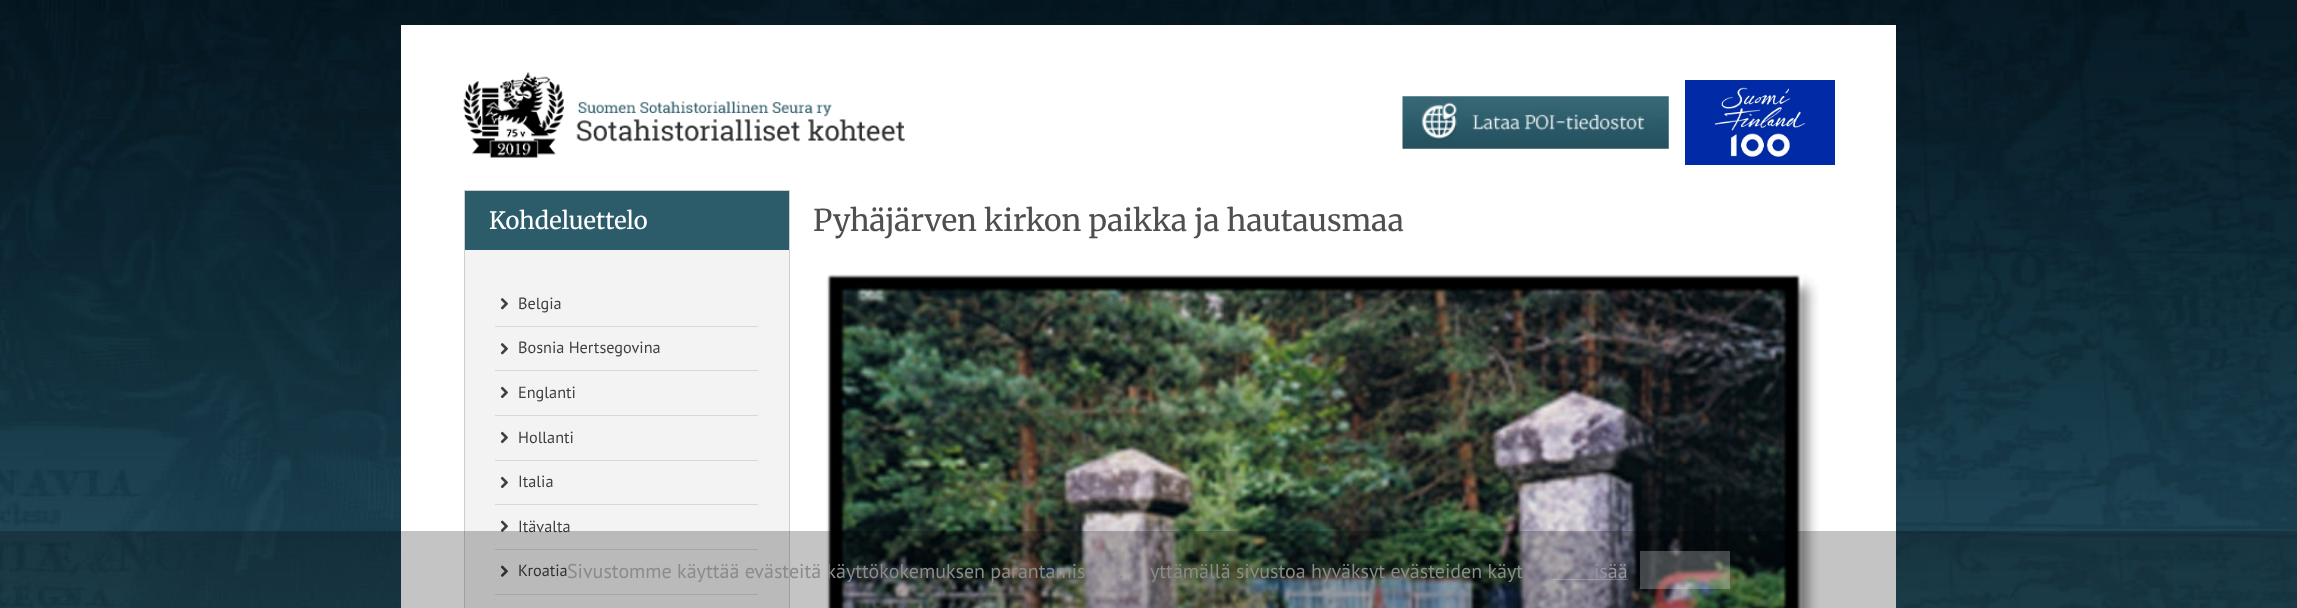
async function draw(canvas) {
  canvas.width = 2297;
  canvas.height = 608;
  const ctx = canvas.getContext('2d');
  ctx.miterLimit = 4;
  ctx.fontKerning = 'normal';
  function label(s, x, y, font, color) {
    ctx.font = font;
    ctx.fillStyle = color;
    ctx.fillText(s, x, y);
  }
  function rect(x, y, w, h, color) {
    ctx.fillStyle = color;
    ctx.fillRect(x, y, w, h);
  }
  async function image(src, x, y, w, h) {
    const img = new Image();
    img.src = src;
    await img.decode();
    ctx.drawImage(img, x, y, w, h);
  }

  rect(0, 0, 2297, 608, '#fff');
  await image('assets/img1.png', 0, 0, 2297, 608);
  rect(401, 25, 1495, 583, '#fff');
  await image('assets/img2.png', 463, 72, 442, 86);
  await image('assets/img3.png', 1402, 96, 267, 53);
  await image('assets/img4.png', 1685, 80, 150, 85);
  ctx.strokeStyle = '#cecece';
  ctx.strokeRect(464.5, 190.5, 325, 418);
  rect(465, 191, 324, 59, '#2c5c6a');
  label('Kohdeluettelo', 489, 229, '300 23.75px Merriweather', '#fff');
  rect(465, 250, 324, 358, '#f3f3f3');
  await image('assets/img5.png', 500, 298, 8, 12);
  label('Belgia', 518, 309, '16.25px PT Sans', '#3f3f3f');
  rect(495, 326, 263, 1, '#d8d8d8');
  await image('assets/img5.png', 500, 343, 8, 12);
  label('Bosnia Hertsegovina', 518, 353, '16.25px PT Sans', '#3f3f3f');
  rect(495, 370, 263, 1, '#d8d8d8');
  await image('assets/img6.png', 500, 386, 8, 13);
  label('Englanti', 518, 398, '16.25px PT Sans', '#3f3f3f');
  rect(495, 415, 263, 1, '#d8d8d8');
  await image('assets/img6.png', 500, 431, 8, 13);
  label('Hollanti', 518, 443, '16.25px PT Sans', '#3f3f3f');
  rect(495, 460, 263, 1, '#d8d8d8');
  await image('assets/img6.png', 500, 476, 8, 13);
  label('Italia', 518, 487, '16.25px PT Sans', '#3f3f3f');
  rect(495, 504, 263, 1, '#d8d8d8');
  await image('assets/img7.png', 500, 520, 8, 12);
  label('Itävalta', 518, 532, '16.25px PT Sans', '#3f3f3f');
  rect(495, 549, 263, 1, '#d8d8d8');
  await image('assets/img7.png', 500, 565, 8, 12);
  label('Kroatia', 518, 576, '16.25px PT Sans', '#3f3f3f');
  rect(495, 594, 263, 1, '#d8d8d8');
  label('Pyhäjärven kirkon paikka ja hautausmaa', 813, 231, '300 30px Merriweather', '#4f4f4f');
  await image('assets/img8.png', 826, 274, 993, 334);
  rect(0, 531, 2297, 77, '#0000003b');
  label('Sivustomme käyttää evästeitä käyttökokemuksen parantamis', 567, 578, '20px PT Sans', '#898c88');
  label('.', 1119, 578, '20px PT Sans', '#898c88');
  label('yttämällä sivustoa hyväksyt evästeiden käyt', 1150, 578, '20px PT Sans', '#898c88');
  label('isää', 1594, 578, '20px PT Sans', '#96949e');
  rect(1553, 579, 75, 1, '#ffffff40');
  rect(1640, 551, 90, 38, '#ffffff40');
}

draw(document.querySelector('canvas'));
